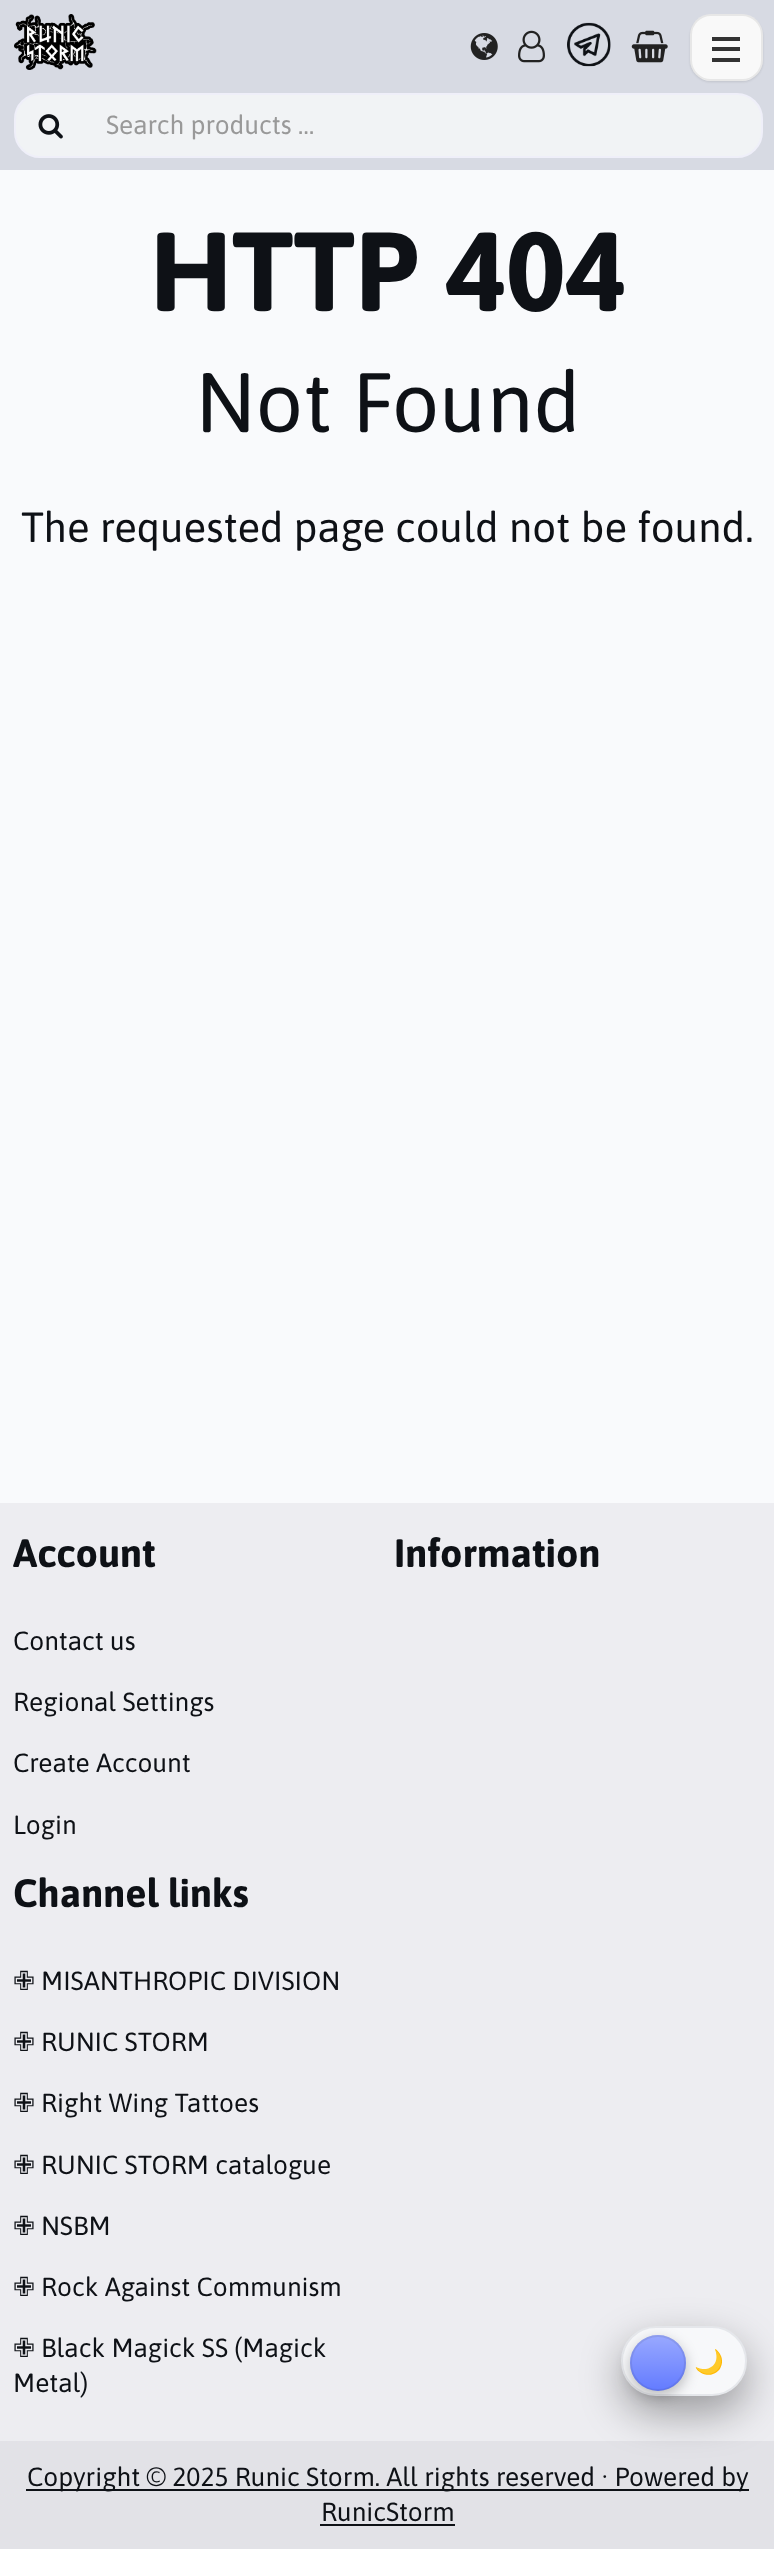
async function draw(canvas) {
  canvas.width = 774;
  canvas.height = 2549;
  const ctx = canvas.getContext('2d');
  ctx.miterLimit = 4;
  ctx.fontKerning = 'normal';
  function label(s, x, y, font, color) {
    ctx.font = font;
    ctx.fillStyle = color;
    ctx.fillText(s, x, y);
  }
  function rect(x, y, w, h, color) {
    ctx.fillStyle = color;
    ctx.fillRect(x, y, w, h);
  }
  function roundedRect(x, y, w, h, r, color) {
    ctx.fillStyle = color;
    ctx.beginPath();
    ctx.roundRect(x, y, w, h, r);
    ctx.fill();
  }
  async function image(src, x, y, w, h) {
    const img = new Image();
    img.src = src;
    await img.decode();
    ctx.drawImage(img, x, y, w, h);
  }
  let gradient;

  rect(0, 0, 774, 2549, '#f9fafc');
  rect(0, 0, 774, 170, '#d7dae3');
  await image('assets/img1.png', 14, 14, 83, 56);
  await image('assets/img2.png', 470, 33, 28, 27);
  await image('assets/img3.png', 518, 30, 27, 33);
  await image('assets/img4.png', 567, 22, 44, 45);
  await image('assets/img5.png', 631, 30, 37, 33);
  ctx.fillStyle = '#0000001a';
  ctx.filter = 'blur(1px)';
  ctx.beginPath();
  ctx.roundRect(690, 16, 73, 66, 21);
  ctx.fill();
  ctx.filter = 'none';
  roundedRect(690, 14, 73, 67, 21, '#f9f9f9');
  ctx.beginPath();
  ctx.roundRect(691, 15, 71, 65, 20);
  ctx.strokeStyle = '#00000012';
  ctx.lineWidth = 2;
  ctx.stroke();
  rect(712, 37, 28, 4, '#333');
  rect(712, 47, 28, 4, '#333');
  rect(712, 58, 28, 4, '#333');
  ctx.fillStyle = '#f1f3f5';
  ctx.beginPath();
  ctx.roundRect(15, 94, 747, 63, 25);
  ctx.fill();
  ctx.strokeStyle = '#efeff9';
  ctx.stroke();
  await image('assets/img6.png', 38, 114, 25, 25);
  label('Search products …', 106, 134, '26.25px Asap', '#999');
  label('HTTP 404', 150, 311, 'bold 112px Asap', '#0e1116');
  label('Not Found', 195, 432, '84px Asap', '#0e1116');
  label('The requested page could not be found.', 21, 542, '42px Asap', '#0e1116');
  rect(0, 1503, 774, 938, '#ededf1');
  label('Account', 13, 1567, 'bold 39.5px Asap', '#0e1116');
  label('Contact us', 13, 1650, '26.25px Asap', '#0e1116');
  label('Regional Settings', 13, 1711, '26.25px Asap', '#0e1116');
  label('Create Account', 13, 1772, '26.25px Asap', '#0e1116');
  label('Login', 13, 1834, '26.25px Asap', '#0e1116');
  label('Information', 394, 1567, 'bold 39.5px Asap', '#0e1116');
  label('Channel links', 13, 1907, 'bold 39.5px Asap', '#0e1116');
  label('✙', 13, 1990, '26.25px DejaVu Sans', '#0e1116');
  label('MISANTHROPIC DIVISION', 41, 1990, '26.25px Asap', '#0e1116');
  label('✙', 13, 2051, '26.25px DejaVu Sans', '#0e1116');
  label('RUNIC STORM', 41, 2051, '26.25px Asap', '#0e1116');
  label('✙', 13, 2112, '26.25px DejaVu Sans', '#0e1116');
  label('Right Wing Tattoes', 41, 2112, '26.25px Asap', '#0e1116');
  label('✙', 13, 2174, '26.25px DejaVu Sans', '#0e1116');
  label('RUNIC STORM catalogue', 41, 2174, '26.25px Asap', '#0e1116');
  label('✙', 13, 2235, '26.25px DejaVu Sans', '#0e1116');
  label('NSBM', 41, 2235, '26.25px Asap', '#0e1116');
  label('✙', 13, 2296, '26.25px DejaVu Sans', '#0e1116');
  label('Rock Against Communism', 41, 2296, '26.25px Asap', '#0e1116');
  label('✙', 13, 2357, '26.25px DejaVu Sans', '#0e1116');
  label('Black Magick SS (Magick', 41, 2357, '26.25px Asap', '#0e1116');
  label('Metal)', 13, 2392, '26.25px Asap', '#0e1116');
  rect(0, 2441, 774, 108, '#e2e2e7');
  rect(26, 2489, 723, 2, '#0e1116');
  label('Copyright © 2025 Runic Storm. All rights reserved · Powered by', 27, 2486, '26.25px Asap', '#0e1116');
  label('RunicStorm', 321, 2521, '26.25px Asap', '#0e1116');
  rect(320, 2524, 135, 2, '#0e1116');
  ctx.fillStyle = '#00000059';
  ctx.filter = 'blur(21px)';
  ctx.beginPath();
  ctx.roundRect(621, 2343, 126, 70, 35);
  ctx.fill();
  ctx.filter = 'none';
  ctx.fillStyle = '#f7f8fa';
  ctx.beginPath();
  ctx.roundRect(622, 2327, 124, 68, 34);
  ctx.fill();
  ctx.strokeStyle = '#e5e7eb';
  ctx.stroke();
  ctx.fillStyle = '#00000040';
  ctx.filter = 'blur(7px)';
  ctx.beginPath();
  ctx.roundRect(630, 2340, 56, 56, 28);
  ctx.fill();
  ctx.filter = 'none';
  ctx.fillStyle = '#637bff';
  ctx.beginPath();
  ctx.arc(658, 2363, 28, 0, 2 * Math.PI);
  ctx.fill();
  gradient = ctx.createLinearGradient(658, 2335, 658, 2391);
  gradient.addColorStop(0, '#ffffff59');
  gradient.addColorStop(1, '#ffffff00');
  ctx.fillStyle = gradient;
  ctx.beginPath();
  ctx.arc(658, 2363, 28, 0, 2 * Math.PI);
  ctx.fill();
  ctx.beginPath();
  ctx.arc(658, 2363, 27, 0, 2 * Math.PI);
  ctx.strokeStyle = '#00000012';
  ctx.stroke();
  label('🌙', 694, 2370, '24px Noto Color Emoji', '#2c2d2d');
}

draw(document.querySelector('canvas'));
